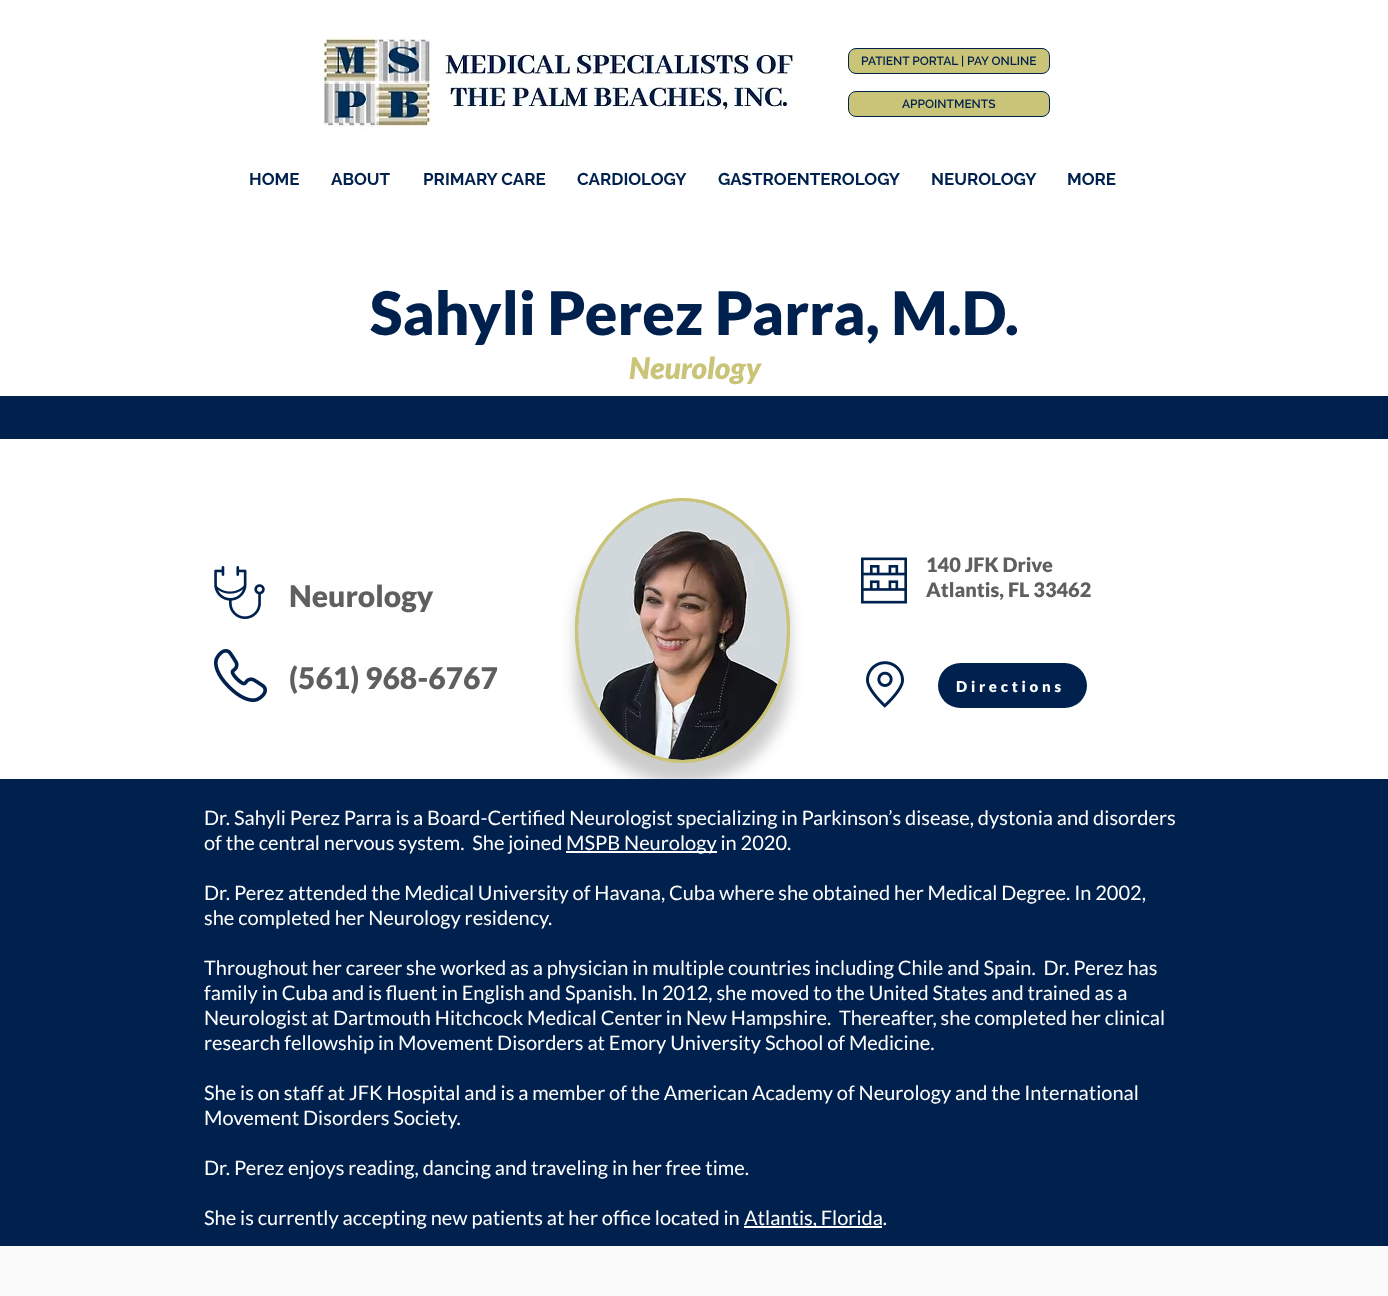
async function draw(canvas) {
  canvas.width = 1388;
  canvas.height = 1296;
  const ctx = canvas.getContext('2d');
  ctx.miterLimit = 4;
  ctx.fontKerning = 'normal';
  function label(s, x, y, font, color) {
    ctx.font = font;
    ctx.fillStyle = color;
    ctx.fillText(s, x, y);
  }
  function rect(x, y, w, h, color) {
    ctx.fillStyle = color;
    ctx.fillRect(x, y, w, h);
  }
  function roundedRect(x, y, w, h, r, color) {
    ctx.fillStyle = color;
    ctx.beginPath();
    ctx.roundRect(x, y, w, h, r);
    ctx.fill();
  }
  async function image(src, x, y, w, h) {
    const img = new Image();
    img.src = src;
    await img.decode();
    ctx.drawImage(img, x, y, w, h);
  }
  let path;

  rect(0, 0, 1388, 1296, '#fff');
  await image('assets/img1.png', 323, 37, 472, 94);
  ctx.fillStyle = '#c9c478';
  ctx.beginPath();
  ctx.roundRect(848.5, 48.5, 201, 25, 7.5);
  ctx.fill();
  ctx.strokeStyle = '#00214d';
  ctx.stroke();
  label('PATIENT PORTAL | PAY ONLINE', 861, 65, '600 12px Raleway', '#00214d');
  ctx.fillStyle = '#c9c478';
  ctx.beginPath();
  ctx.roundRect(848.5, 91.5, 201, 25, 7.5);
  ctx.fill();
  ctx.stroke();
  label('APPOINTMENTS', 902, 108, '600 12px Raleway', '#00214d');
  label('HOME', 249, 185, 'bold 17px Raleway', '#00214d');
  label('ABOUT', 331, 185, 'bold 17px Raleway', '#00214d');
  label('PRIMARY CARE', 423, 185, 'bold 17px Raleway', '#00214d');
  label('CARDIOLOGY', 577, 185, 'bold 17px Raleway', '#00214d');
  label('GASTROENTEROLOGY', 718, 185, 'bold 17px Raleway', '#00214d');
  label('NEUROLOGY', 931, 185, 'bold 17px Raleway', '#00214d');
  label('MORE', 1067, 185, 'bold 17px Raleway', '#00214d');
  label('Sahyli Perez Parra, M.D.', 370, 335, '900 60px Lato', '#00214d');
  label('Neurology', 629, 379, 'italic 900 30px Lato', '#c9c478');
  rect(0, 396, 1388, 43, '#00214d');
  await image('assets/img2.png', 214, 566, 51, 53);
  label('Neurology', 289, 607, '900 30px Lato', '#605e5e');
  await image('assets/img3.png', 214, 649, 53, 53);
  label('(561) 968-6767', 289, 689, '900 30px Lato', '#605e5e');
  ctx.fillStyle = '#00000033';
  ctx.filter = 'blur(7px)';
  ctx.beginPath();
  ctx.roundRect(575, 519, 215, 265, 107.5);
  ctx.fill();
  ctx.filter = 'none';
  ctx.fillStyle = '#c9c478';
  ctx.beginPath();
  ctx.ellipse(682.5, 630.5, 107.5, 132.5, 0, 0, 2 * Math.PI);
  ctx.fill();
  path = new Path2D('M682.5 499.5C741 499.5 788.5 558 788.5 630.5C788.5 703 741 761.5 682.5 761.5C624 761.5 576.5 703 576.5 630.5C576.5 558 624 499.5 682.5 499.5Z');
  ctx.strokeStyle = '#c9c478';
  ctx.lineWidth = 3;
  ctx.stroke(path);
  await image('assets/img4.png', 578, 501, 209, 259);
  await image('assets/img5.png', 861, 557, 46, 47);
  label('140 JFK Drive', 926, 572, '900 20px Lato', '#605e5e');
  label('Atlantis, FL 33462', 926, 597, '900 20px Lato', '#605e5e');
  await image('assets/img6.png', 866, 661, 38, 47);
  roundedRect(938, 663, 149, 45, 22.5, '#00214d');
  ctx.letterSpacing = '3.75px';
  label('Directions', 956, 692, '900 15px Lato', '#fff');
  rect(0, 779, 1388, 467, '#00214d');
  ctx.letterSpacing = '0px';
  label('Dr. Sahyli Perez Parra is a Board-Certified Neurologist specializing in Parkinson’s disease, dystonia and disorders', 204, 825, '20px Lato', '#fff');
  label('of the central nervous system.  She joined', 204, 850, '20px Lato', '#fff');
  rect(566, 851, 151, 2, '#fff');
  label('MSPB Neurology in 2020.', 566, 850, '20px Lato', '#fff');
  label('Dr. Perez attended the Medical University of Havana, Cuba where she obtained her Medical Degree. In 2002,', 204, 900, '20px Lato', '#fff');
  label('she completed her Neurology residency.', 204, 925, '20px Lato', '#fff');
  label('Throughout her career she worked as a physician in multiple countries including Chile and Spain.  Dr. Perez has', 204, 975, '20px Lato', '#fff');
  label('family in Cuba and is fluent in English and Spanish. In 2012, she moved to the United States and trained as a', 204, 1000, '20px Lato', '#fff');
  label('Neurologist at Dartmouth Hitchcock Medical Center in New Hampshire.  Thereafter, she completed her clinical', 204, 1025, '20px Lato', '#fff');
  label('research fellowship in Movement Disorders at Emory University School of Medicine.', 204, 1050, '20px Lato', '#fff');
  label('She is on staff at JFK Hospital and is a member of the American Academy of Neurology and the International', 204, 1100, '20px Lato', '#fff');
  label('Movement Disorders Society.', 204, 1125, '20px Lato', '#fff');
  label('Dr. Perez enjoys reading, dancing and traveling in her free time.', 204, 1175, '20px Lato', '#fff');
  label('She is currently accepting new patients at her office located in', 204, 1225, '20px Lato', '#fff');
  rect(744, 1226, 138, 2, '#fff');
  label('Atlantis, Florida.', 744, 1225, '20px Lato', '#fff');
  rect(0, 1246, 1388, 50, '#fafafa');
}

draw(document.querySelector('canvas'));
